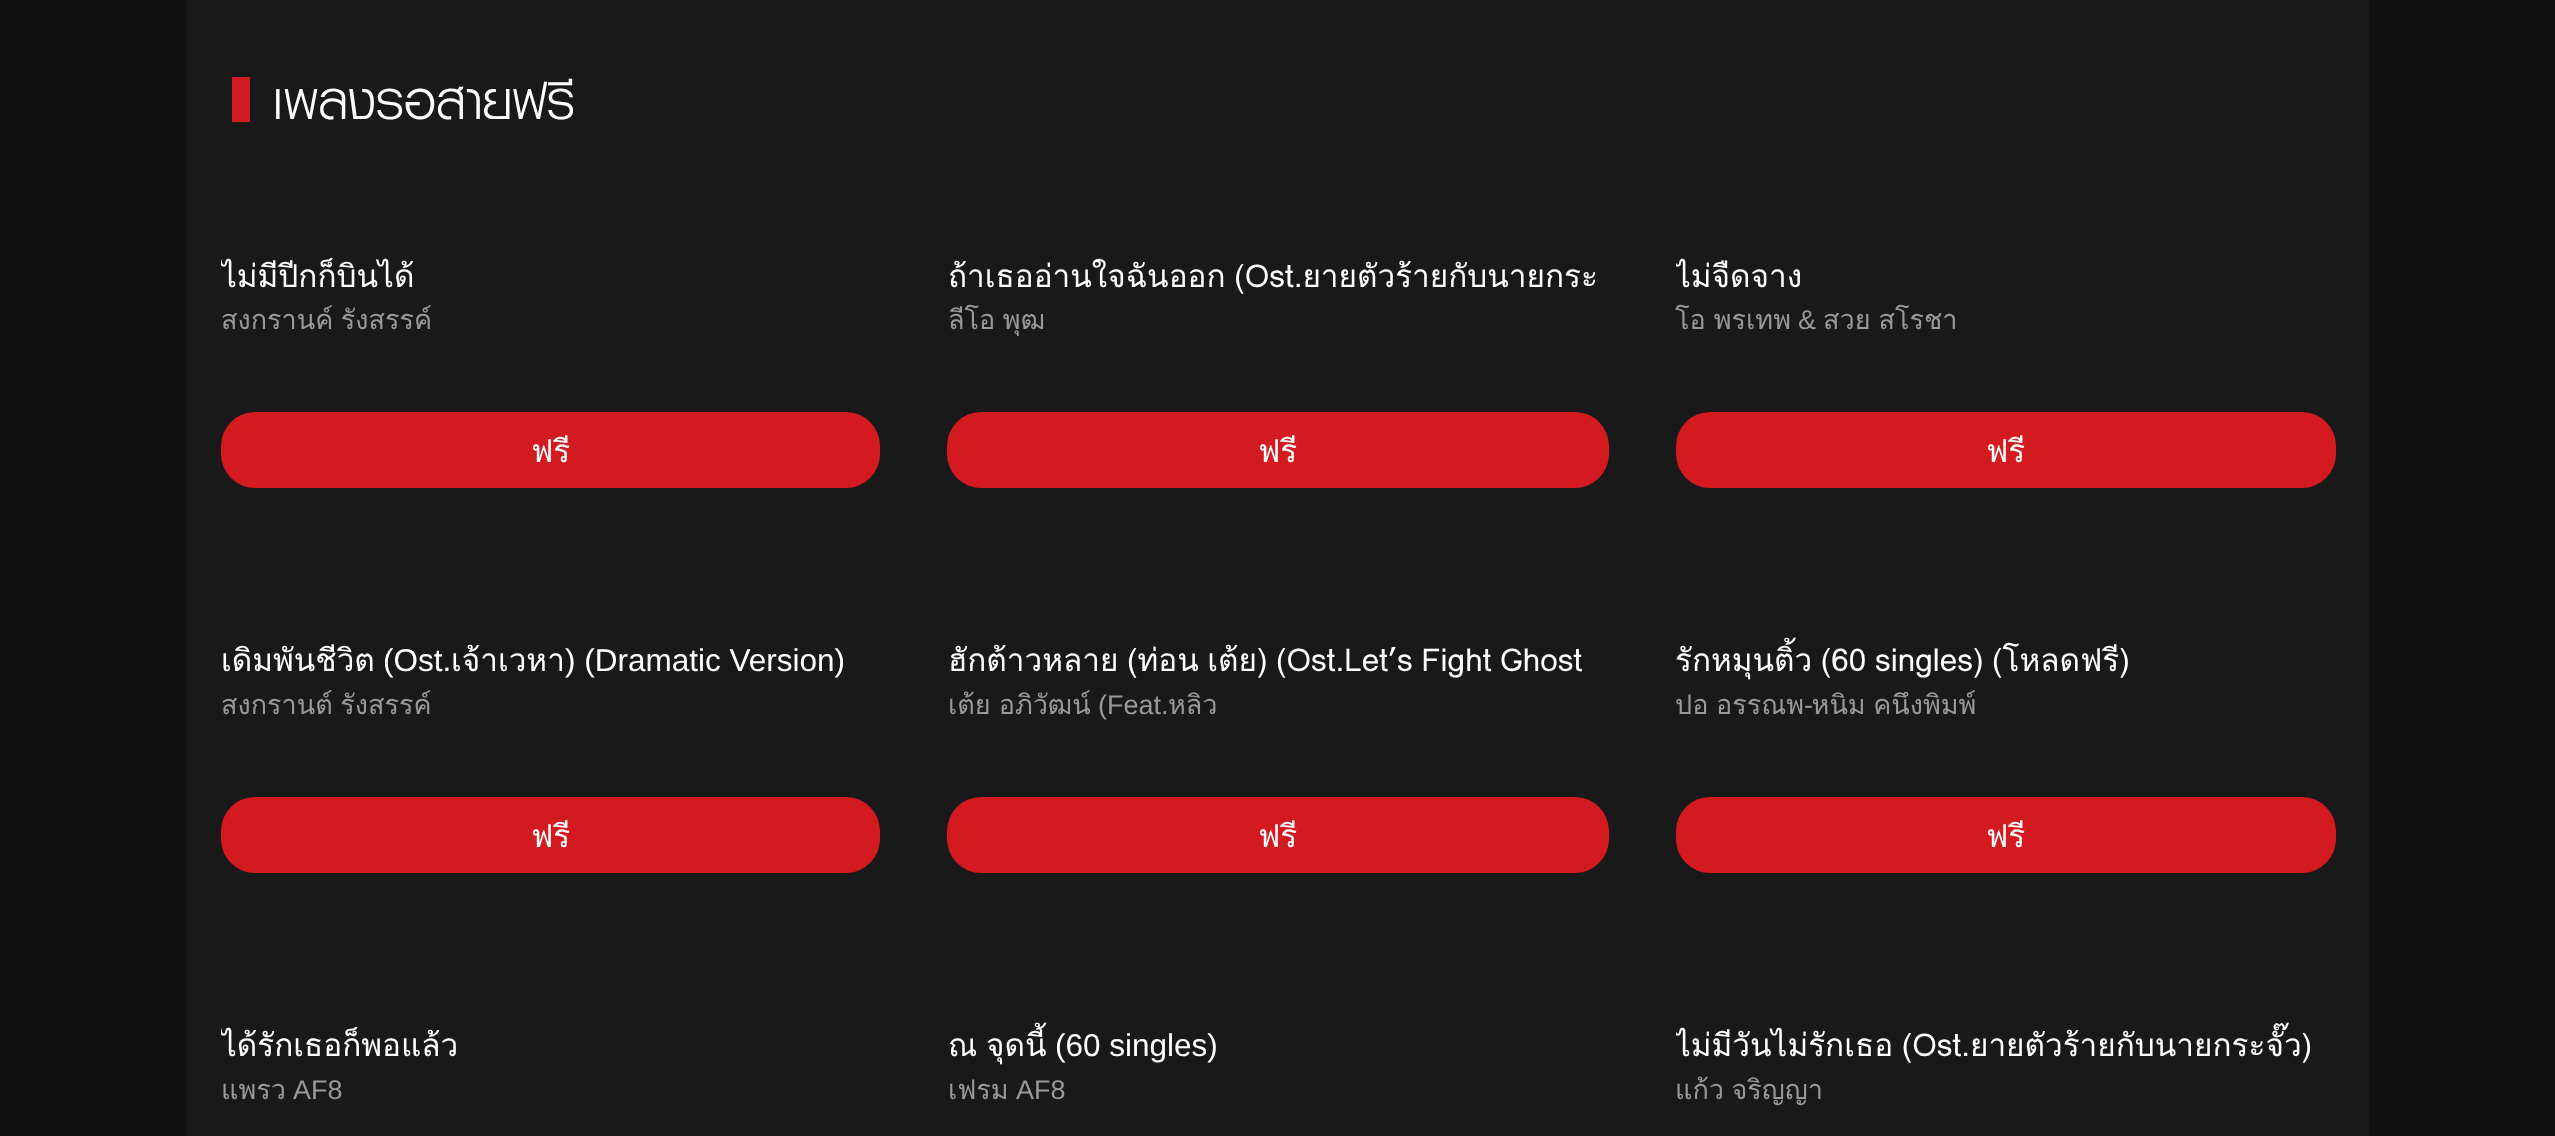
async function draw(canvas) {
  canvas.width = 2555;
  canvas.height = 1136;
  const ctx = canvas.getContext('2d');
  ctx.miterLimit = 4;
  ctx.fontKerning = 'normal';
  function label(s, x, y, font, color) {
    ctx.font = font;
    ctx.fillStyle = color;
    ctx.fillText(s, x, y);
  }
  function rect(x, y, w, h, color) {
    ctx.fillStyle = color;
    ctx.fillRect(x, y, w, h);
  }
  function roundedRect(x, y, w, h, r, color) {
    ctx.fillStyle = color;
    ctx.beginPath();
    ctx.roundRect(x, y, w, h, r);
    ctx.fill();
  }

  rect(0, 0, 2555, 1136, '#111');
  rect(187, 0, 2182, 1136, '#191919');
  rect(232, 77, 18, 45, '#d11a21');
  label('เพลงรอสายฟรี', 272, 119, '300 49.5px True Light', '#fff');
  ctx.save();
  ctx.beginPath();
  ctx.rect(221, 252, 659, 50);
  ctx.clip();
  label('ไม่มีปีกก็บินได้', 221, 287, '31.5px Loma', '#fff');
  ctx.restore();
  ctx.wordSpacing = '-1.5px';
  label('สงกรานค์ รังสรรค์', 221, 329, '27px Loma', '#999');
  roundedRect(221, 412, 659, 76, 34, '#d31a21');
  ctx.wordSpacing = '0px';
  label('ฟรี', 531, 462, '31.5px Loma', '#fff');
  ctx.save();
  ctx.beginPath();
  ctx.rect(947, 252, 662, 50);
  ctx.clip();
  ctx.wordSpacing = '-2px';
  label('ถ้าเธออ่านใจฉันออก (Ost.ยายตัวร้ายกับนายกระ', 948, 287, '31.5px Loma', '#fff');
  ctx.restore();
  ctx.save();
  ctx.beginPath();
  ctx.rect(947, 302, 315, 42);
  ctx.clip();
  ctx.wordSpacing = '-1.5px';
  label('ลีโอ พุฒ', 948, 329, '27px Loma', '#999');
  ctx.restore();
  roundedRect(947, 412, 662, 76, 34, '#d31a21');
  label('ฟรี', 1258, 462, '31.5px Loma', '#fff');
  ctx.save();
  ctx.beginPath();
  ctx.rect(1676, 252, 660, 50);
  ctx.clip();
  label('ไม่จืดจาง', 1675, 287, '31.5px Loma', '#fff');
  ctx.restore();
  ctx.wordSpacing = '-1px';
  label('โอ พรเทพ', 1675, 329, '27px Loma', '#999');
  ctx.wordSpacing = '0px';
  label('&', 1798, 329, '27px Liberation Sans', '#999');
  ctx.wordSpacing = '-1px';
  label('สวย สโรชา', 1823, 329, '27px Loma', '#999');
  roundedRect(1676, 412, 660, 76, 34, '#d31a21');
  ctx.wordSpacing = '0px';
  label('ฟรี', 1986, 462, '31.5px Loma', '#fff');
  ctx.save();
  ctx.beginPath();
  ctx.rect(221, 637, 659, 49);
  ctx.clip();
  label('เดิมพันชีวิต', 221, 671, '31.5px Loma', '#fff');
  ctx.restore();
  label('(Ost.', 383, 671, '31.5px Liberation Sans', '#fff');
  label('เจ้าเวหา', 451, 671, '31.5px Loma', '#fff');
  label(') (Dramatic Version)', 565, 671, '31.5px Liberation Sans', '#fff');
  ctx.wordSpacing = '-1.5px';
  label('สงกรานต์ รังสรรค์', 221, 714, '27px Loma', '#999');
  roundedRect(221, 797, 659, 76, 34, '#d31a21');
  ctx.wordSpacing = '0px';
  label('ฟรี', 531, 847, '31.5px Loma', '#fff');
  ctx.save();
  ctx.beginPath();
  ctx.rect(947, 637, 662, 49);
  ctx.clip();
  ctx.wordSpacing = '-2px';
  label('ฮักต้าวหลาย (ท่อน เต้ย) (Ost.Let’s Fight Ghost', 948, 671, '31.5px Loma', '#fff');
  ctx.restore();
  ctx.save();
  ctx.beginPath();
  ctx.rect(947, 686, 315, 43);
  ctx.clip();
  ctx.wordSpacing = '-1px';
  label('เต้ย อภิวัฒน์', 948, 714, '27px Loma', '#999');
  ctx.restore();
  label('(Feat.', 1098, 714, '27px Liberation Sans', '#999');
  label('หลิว', 1168, 714, '27px Loma', '#999');
  roundedRect(947, 797, 662, 76, 34, '#d31a21');
  label('ฟรี', 1258, 847, '31.5px Loma', '#fff');
  ctx.save();
  ctx.beginPath();
  ctx.rect(1676, 637, 660, 49);
  ctx.clip();
  ctx.wordSpacing = '-2px';
  label('รักหมุนติ้ว (60 singles) (โหลดฟรี)', 1675, 671, '31.5px Loma', '#fff');
  ctx.restore();
  ctx.wordSpacing = '-1.5px';
  label('ปอ อรรณพ หนิม คนึงพิมพ์', 1675, 714, '27px Loma', '#999');
  ctx.wordSpacing = '0px';
  label('-', 1804, 714, '27px Liberation Sans', '#999');
  roundedRect(1676, 797, 660, 76, 34, '#d31a21');
  label('ฟรี', 1986, 847, '31.5px Loma', '#fff');
  ctx.save();
  ctx.beginPath();
  ctx.rect(221, 1022, 659, 49);
  ctx.clip();
  label('ได้รักเธอก็พอแล้ว', 221, 1056, '31.5px Loma', '#fff');
  ctx.restore();
  label('แพรว', 221, 1099, '27px Loma', '#999');
  label('AF8', 293, 1099, '27px Liberation Sans', '#999');
  label('ณ', 948, 1056, '31.5px Loma', '#fff');
  label('จุดนี้', 986, 1056, '31.5px Loma', '#fff');
  label('(60 singles)', 1055, 1056, '31.5px Liberation Sans', '#fff');
  label('เฟรม', 948, 1099, '27px Loma', '#999');
  label('AF8', 1016, 1099, '27px Liberation Sans', '#999');
  ctx.save();
  ctx.beginPath();
  ctx.rect(1676, 1022, 660, 49);
  ctx.clip();
  ctx.wordSpacing = '-2px';
  label('ไม่มีวันไม่รักเธอ (Ost.ยายตัวร้ายกับนายกระจั๊ว)', 1675, 1056, '31.5px Loma', '#fff');
  ctx.restore();
  ctx.wordSpacing = '-1.5px';
  label('แก้ว จริญญา', 1675, 1099, '27px Loma', '#999');
}

draw(document.querySelector('canvas'));
